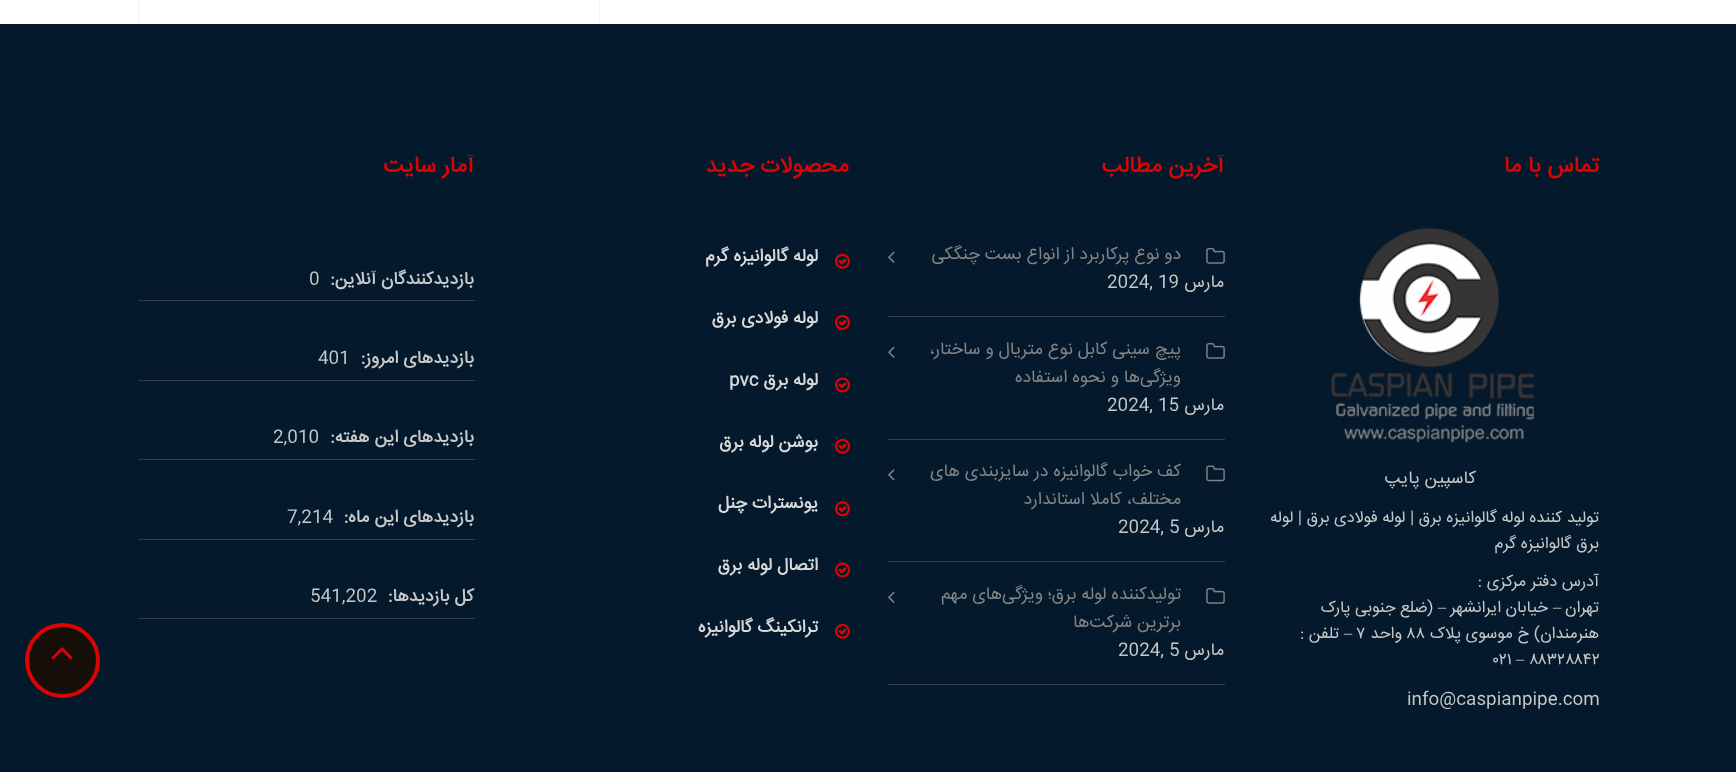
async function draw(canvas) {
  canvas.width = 1736;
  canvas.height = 772;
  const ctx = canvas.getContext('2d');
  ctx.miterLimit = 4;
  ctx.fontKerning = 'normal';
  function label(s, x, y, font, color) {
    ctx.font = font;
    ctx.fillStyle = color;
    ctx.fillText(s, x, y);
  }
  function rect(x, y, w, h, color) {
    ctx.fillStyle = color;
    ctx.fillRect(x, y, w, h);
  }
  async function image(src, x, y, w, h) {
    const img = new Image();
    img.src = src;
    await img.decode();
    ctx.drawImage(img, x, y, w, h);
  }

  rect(0, 0, 1736, 772, '#fff');
  rect(599, 0, 1, 24, '#f4f4f4');
  rect(138, 0, 1, 24, '#f4f4f4');
  rect(0, 24, 1736, 748, '#04192b');
  ctx.direction = 'rtl';
  label('تماس با ما', 1599, 172, 'bold 22.5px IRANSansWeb', '#db0404');
  await image('assets/img1.png', 1331, 228, 203, 215);
  label('کاسپین پایپ', 1476, 483, '17.5px IRANSansWeb', '#c8c8c8');
  label('تولید کننده لوله گالوانیزه برق | لوله فولادی برق | لوله', 1599, 522, '16.25px IRANSansWeb', '#c8c8c8');
  label('برق گالوانیزه گرم', 1599, 548, '16.25px IRANSansWeb', '#c8c8c8');
  label('آدرس دفتر مرکزی :', 1599, 586, '16.25px IRANSansWeb', '#c8c8c8');
  label('تهران', 1599, 612, '16.25px IRANSansWeb', '#c8c8c8');
  label('–', 1561, 612, '16.25px Liberation Serif', '#c8c8c8');
  label('خیابان ایرانشهر', 1548, 612, '16.25px IRANSansWeb', '#c8c8c8');
  label('–', 1446, 612, '16.25px Liberation Serif', '#c8c8c8');
  label('(ضلع جنوبی پارک', 1433, 612, '16.25px IRANSansWeb', '#c8c8c8');
  label('هنرمندان) خ موسوی پلاک', 1599, 638, '16.25px IRANSansWeb', '#c8c8c8');
  ctx.direction = 'ltr';
  label('۸۸', 1406, 638, '16.25px IRANSansWeb', '#c8c8c8');
  ctx.direction = 'rtl';
  label('واحد', 1402, 638, '16.25px IRANSansWeb', '#c8c8c8');
  ctx.direction = 'ltr';
  label('۷', 1356, 638, '16.25px IRANSansWeb', '#c8c8c8');
  ctx.direction = 'rtl';
  label('–', 1352, 638, '16.25px Liberation Serif', '#c8c8c8');
  label('تلفن :', 1339, 638, '16.25px IRANSansWeb', '#c8c8c8');
  ctx.direction = 'ltr';
  label('۸۸۳۲۸۸۴۲', 1529, 664, '16.25px IRANSansWeb', '#c8c8c8');
  label('–', 1516, 664, '16.25px Liberation Serif', '#c8c8c8');
  label('۰۲۱', 1493, 664, '16.25px IRANSansWeb', '#c8c8c8');
  label('info@caspianpipe.com', 1407, 704, '17.5px IRANSansWeb', '#c8c8c8');
  ctx.direction = 'rtl';
  label('آخرین مطالب', 1224, 172, 'bold 22.5px IRANSansWeb', '#db0404');
  rect(888, 316, 337, 1, '#373f46');
  await image('assets/img2.png', 1206, 248, 19, 16);
  label('دو نوع پرکاربرد از انواع بست چنگکی', 1181, 259, '17.5px IRANSansWeb', '#848484');
  await image('assets/img3.png', 888, 251, 7, 12);
  label('مارس', 1224, 287, '17.5px IRANSansWeb', '#c8c8c8');
  ctx.direction = 'ltr';
  label('2024, 19', 1107, 287, '17.5px IRANSansWeb', '#c8c8c8');
  rect(888, 439, 337, 1, '#373f46');
  await image('assets/img2.png', 1206, 343, 19, 16);
  ctx.direction = 'rtl';
  label('پیچ سینی کابل نوع متریال و ساختار،', 1181, 354, '17.5px IRANSansWeb', '#848484');
  label('ویژگی‌ها و نحوه استفاده', 1181, 382, '17.5px IRANSansWeb', '#848484');
  await image('assets/img3.png', 888, 346, 7, 12);
  label('مارس', 1224, 410, '17.5px IRANSansWeb', '#c8c8c8');
  ctx.direction = 'ltr';
  label('2024, 15', 1107, 410, '17.5px IRANSansWeb', '#c8c8c8');
  rect(888, 561, 337, 1, '#373f46');
  await image('assets/img4.png', 1206, 465, 19, 17);
  ctx.direction = 'rtl';
  label('کف خواب گالوانیزه در سایزبندی های', 1181, 476, '17.5px IRANSansWeb', '#848484');
  label('مختلف، کاملا استاندارد', 1181, 504, '17.5px IRANSansWeb', '#848484');
  await image('assets/img5.png', 888, 469, 7, 12);
  label('مارس', 1224, 532, '17.5px IRANSansWeb', '#c8c8c8');
  ctx.direction = 'ltr';
  label('2024, 5', 1118, 532, '17.5px IRANSansWeb', '#c8c8c8');
  rect(888, 684, 337, 1, '#373f46');
  await image('assets/img2.png', 1206, 588, 19, 16);
  ctx.direction = 'rtl';
  label('تولیدکننده لوله برق؛ ویژگی‌های مهم', 1181, 599, '17.5px IRANSansWeb', '#848484');
  label('برترین شرکت‌ها', 1181, 627, '17.5px IRANSansWeb', '#848484');
  await image('assets/img3.png', 888, 591, 7, 12);
  label('مارس', 1224, 655, '17.5px IRANSansWeb', '#c8c8c8');
  ctx.direction = 'ltr';
  label('2024, 5', 1118, 655, '17.5px IRANSansWeb', '#c8c8c8');
  ctx.direction = 'rtl';
  label('محصولات جدید', 849, 172, 'bold 22.5px IRANSansWeb', '#db0404');
  await image('assets/img6.png', 835, 253, 15, 16);
  label('لوله گالوانیزه گرم', 818, 261, 'bold 17.5px IRANSansWeb', '#d8d8d8');
  await image('assets/img7.png', 835, 315, 15, 15);
  label('لوله فولادی برق', 818, 323, 'bold 17.5px IRANSansWeb', '#d8d8d8');
  await image('assets/img8.png', 835, 377, 15, 16);
  label('لوله برق', 818, 385, 'bold 17.5px IRANSansWeb', '#d8d8d8');
  ctx.direction = 'ltr';
  label('pvc', 729, 385, 'bold 17.5px IRANSansWeb', '#d8d8d8');
  await image('assets/img6.png', 835, 438, 15, 16);
  ctx.direction = 'rtl';
  label('بوشن لوله برق', 818, 447, 'bold 17.5px IRANSansWeb', '#d8d8d8');
  await image('assets/img9.png', 835, 501, 15, 16);
  label('یونسترات چنل', 818, 508, 'bold 17.5px IRANSansWeb', '#d8d8d8');
  await image('assets/img8.png', 835, 562, 15, 16);
  label('اتصال لوله برق', 818, 570, 'bold 17.5px IRANSansWeb', '#d8d8d8');
  await image('assets/img6.png', 835, 623, 15, 16);
  label('ترانکینگ گالوانیزه', 818, 632, 'bold 17.5px IRANSansWeb', '#d8d8d8');
  label('آمار سایت', 474, 172, 'bold 22.5px IRANSansWeb', '#db0404');
  rect(138, 300, 337, 1, '#373f46');
  label('بازدیدکنندگان آنلاین:', 474, 284, 'bold 17.5px IRANSansWeb', '#c8c8c8');
  ctx.direction = 'ltr';
  label('0', 309, 284, '17.5px IRANSansWeb', '#c8c8c8');
  rect(138, 380, 337, 1, '#373f46');
  ctx.direction = 'rtl';
  label('بازدیدهای امروز:', 474, 363, 'bold 17.5px IRANSansWeb', '#c8c8c8');
  ctx.direction = 'ltr';
  label('401', 318, 363, '17.5px IRANSansWeb', '#c8c8c8');
  rect(138, 459, 337, 1, '#373f46');
  ctx.direction = 'rtl';
  label('بازدیدهای این هفته:', 474, 442, 'bold 17.5px IRANSansWeb', '#c8c8c8');
  ctx.direction = 'ltr';
  label('2,010', 273, 442, '17.5px IRANSansWeb', '#c8c8c8');
  rect(138, 539, 337, 1, '#373f46');
  ctx.direction = 'rtl';
  label('بازدیدهای این ماه:', 474, 522, 'bold 17.5px IRANSansWeb', '#c8c8c8');
  ctx.direction = 'ltr';
  label('7,214', 287, 522, '17.5px IRANSansWeb', '#c8c8c8');
  rect(138, 618, 337, 1, '#373f46');
  ctx.direction = 'rtl';
  label('کل بازدیدها:', 474, 601, 'bold 17.5px IRANSansWeb', '#c8c8c8');
  ctx.direction = 'ltr';
  label('541,202', 310, 601, '17.5px IRANSansWeb', '#c8c8c8');
  ctx.fillStyle = '#160f09';
  ctx.beginPath();
  ctx.arc(62.5, 660.5, 35.5, 0, 2 * Math.PI);
  ctx.fill();
  ctx.strokeStyle = '#db0404';
  ctx.lineWidth = 4;
  ctx.stroke();
  await image('assets/img10.png', 51, 647, 22, 13);
}

draw(document.querySelector('canvas'));
